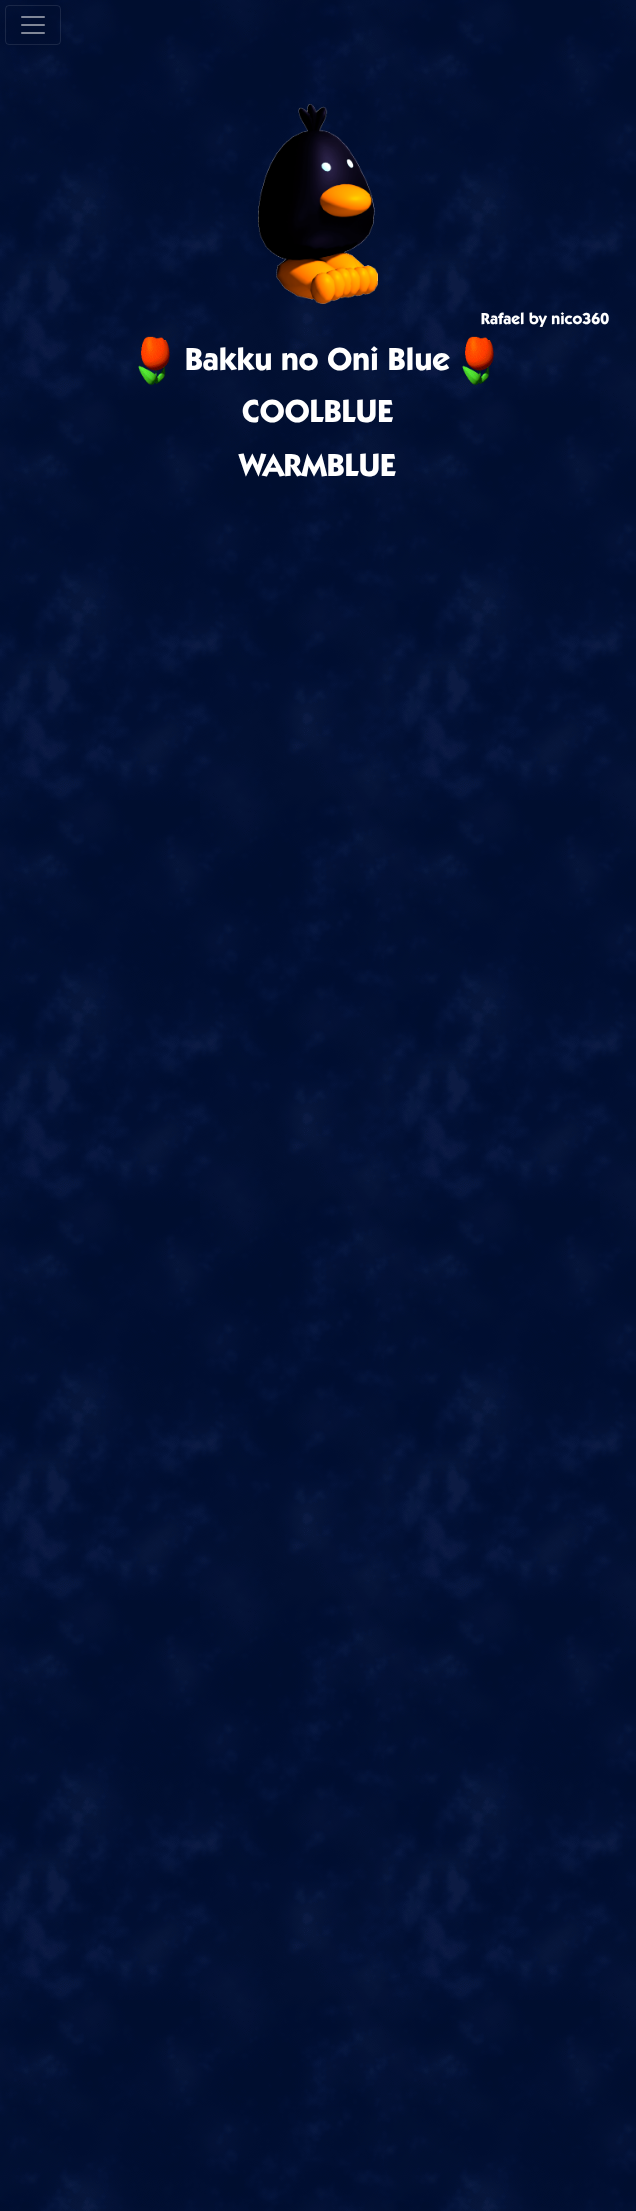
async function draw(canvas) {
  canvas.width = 636;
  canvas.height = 2211;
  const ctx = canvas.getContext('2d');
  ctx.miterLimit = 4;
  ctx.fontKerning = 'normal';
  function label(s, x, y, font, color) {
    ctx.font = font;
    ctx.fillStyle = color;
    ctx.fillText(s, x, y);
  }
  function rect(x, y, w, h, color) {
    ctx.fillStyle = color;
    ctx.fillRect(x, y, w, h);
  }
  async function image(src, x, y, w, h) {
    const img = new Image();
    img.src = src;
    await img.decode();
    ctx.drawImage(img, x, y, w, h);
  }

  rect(0, 0, 636, 2211, '#fff');
  await image('assets/img1.png', 0, 0, 636, 2211);
  rect(0, 0, 636, 100, '#001441b5');
  ctx.beginPath();
  ctx.roundRect(5.5, 5.5, 55, 39, 3.5);
  ctx.strokeStyle = '#ffffff1a';
  ctx.stroke();
  await image('assets/img2.png', 21, 16, 24, 18);
  await image('assets/img3.png', 258, 104, 120, 200);
  label('Rafael by nico360', 481, 324, 'bold 16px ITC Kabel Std', '#fff');
  await image('assets/img4.png', 138, 336, 32, 50);
  label('Bakku no Oni Blue', 185, 370, 'bold 32px ITC Kabel Std', '#fff');
  await image('assets/img5.png', 462, 336, 32, 50);
  label('COOLBLUE', 242, 422, 'bold 32px ITC Kabel Std', '#fff');
  label('WARMBLUE', 239, 476, 'bold 32px ITC Kabel Std', '#fff');
}

draw(document.querySelector('canvas'));
